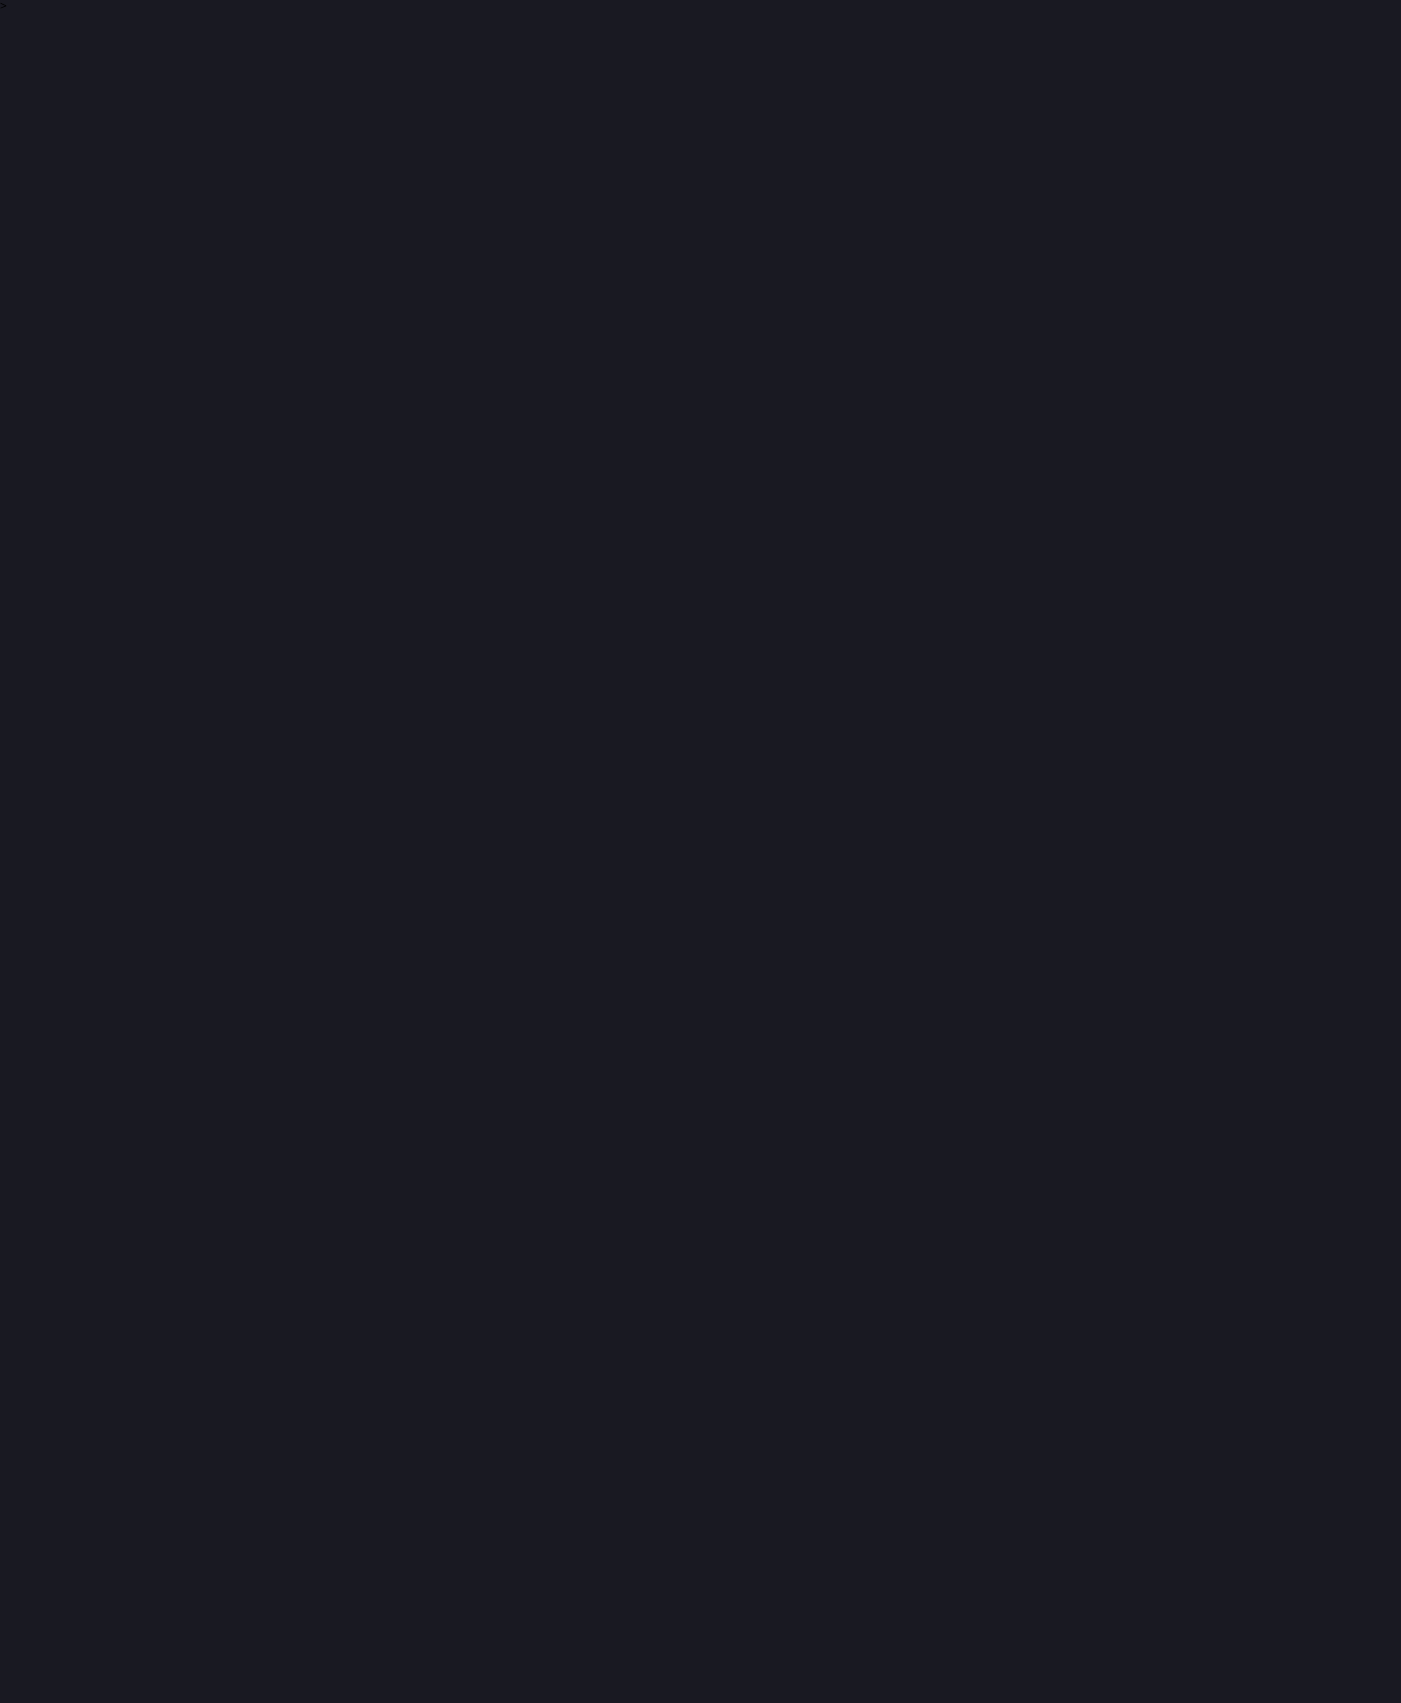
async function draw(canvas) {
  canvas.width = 1401;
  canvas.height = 1703;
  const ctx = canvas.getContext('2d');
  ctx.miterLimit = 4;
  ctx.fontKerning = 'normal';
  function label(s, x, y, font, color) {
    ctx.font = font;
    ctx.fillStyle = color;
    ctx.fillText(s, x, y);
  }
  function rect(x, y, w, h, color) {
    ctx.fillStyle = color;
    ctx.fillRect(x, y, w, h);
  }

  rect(0, 0, 1401, 1703, '#191922');
  label('>', 0, 10, '12px Noto Sans', '#000');
}

draw(document.querySelector('canvas'));
